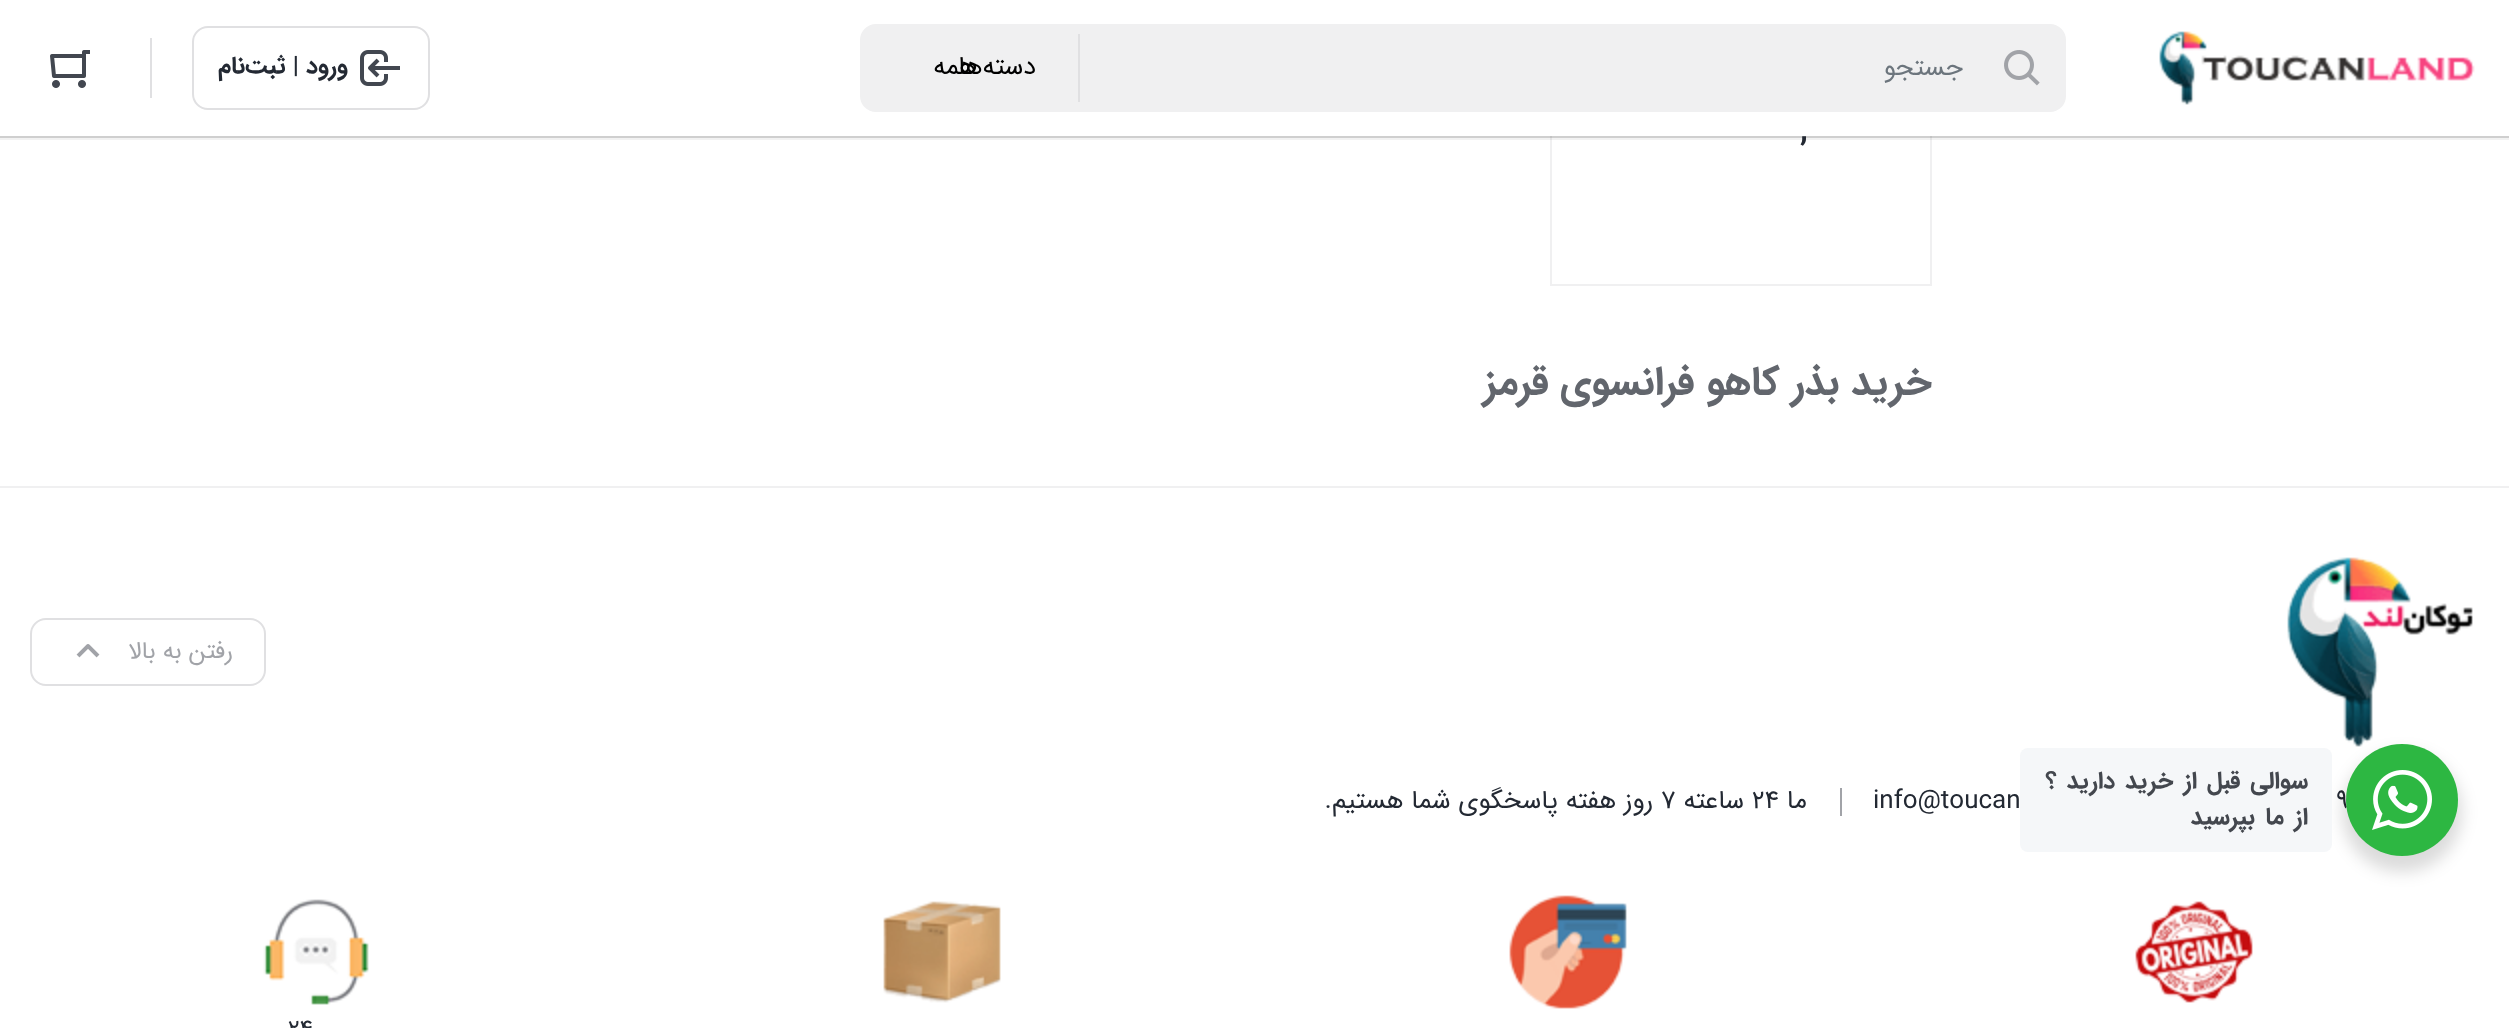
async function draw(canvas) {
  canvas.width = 2509;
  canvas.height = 1028;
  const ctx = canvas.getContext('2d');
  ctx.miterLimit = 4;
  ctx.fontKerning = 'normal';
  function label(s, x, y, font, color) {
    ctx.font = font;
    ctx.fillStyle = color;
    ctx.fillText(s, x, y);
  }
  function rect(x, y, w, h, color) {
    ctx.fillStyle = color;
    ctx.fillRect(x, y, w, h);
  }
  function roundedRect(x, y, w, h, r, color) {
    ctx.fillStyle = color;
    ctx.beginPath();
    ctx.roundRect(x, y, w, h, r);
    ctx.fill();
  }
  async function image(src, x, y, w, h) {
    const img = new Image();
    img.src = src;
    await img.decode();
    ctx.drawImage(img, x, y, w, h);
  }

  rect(0, 0, 2509, 1028, '#fff');
  ctx.strokeStyle = '#f0f0f1';
  ctx.lineWidth = 2;
  ctx.strokeRect(1551, -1, 380, 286);
  rect(1550, 0, 382, 136, '#fff');
  await image('assets/img1.png', 2159, 31, 316, 74);
  ctx.fillStyle = '#f0f0f1';
  ctx.beginPath();
  ctx.roundRect(861, 25, 1204, 86, 15);
  ctx.fill();
  ctx.stroke();
  await image('assets/img2.png', 2004, 50, 36, 36);
  ctx.direction = 'rtl';
  label('جستجو', 1963, 75, '26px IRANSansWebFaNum', '#6c757d');
  rect(1078, 34, 2, 68, '#e0e0e2');
  label('همه', 976, 74, '26px IRANSansWebFaNum', '#000');
  label('دسته‌ها', 1036, 74, '26px IRANSansWebFaNum', '#000');
  ctx.beginPath();
  ctx.roundRect(193, 27, 236, 82, 15);
  ctx.strokeStyle = '#e0e0e2';
  ctx.stroke();
  await image('assets/img3.png', 360, 50, 40, 36);
  label('ورود | ثبت‌نام', 348, 73, 'bold 24px IRANSansWebFaNum', '#232933');
  rect(150, 38, 2, 60, '#e0e0e2');
  await image('assets/img4.png', 50, 50, 40, 38);
  rect(0, 136, 2509, 4, '#0000000d');
  rect(0, 136, 2509, 2, '#00000024');
  ctx.direction = 'ltr';
  label(',', 1800, 140, 'bold 32px IRANSansWebFaNum', '#232933');
  ctx.direction = 'rtl';
  label('خرید بذر کاهو فرانسوی قرمز', 1932, 394, 'bold 40px IRANSansWebFaNum', '#62666d');
  rect(0, 486, 2509, 2, '#f0f0f1');
  await image('assets/img5.png', 2287, 557, 186, 190);
  ctx.beginPath();
  ctx.roundRect(31, 619, 234, 66, 15);
  ctx.stroke();
  label('رفتن به بالا', 233, 658, '24px IRANSansWebFaNum', '#a1a3a8');
  await image('assets/img6.png', 76, 644, 24, 14);
  ctx.direction = 'ltr';
  label('9', 2336, 808, '26px IRANSansWebFaNum', '#232933');
  label('info@toucan', 1873, 808, '26px IRANSansWebFaNum', '#232933');
  rect(1840, 788, 2, 28, '#a1a3a8');
  ctx.direction = 'rtl';
  label('ما', 1807, 808, '26px IRANSansWebFaNum', '#232933');
  ctx.direction = 'ltr';
  label('24', 1752, 808, '26px IRANSansWebFaNum', '#232933');
  ctx.direction = 'rtl';
  label('ساعته', 1744, 808, '26px IRANSansWebFaNum', '#232933');
  ctx.direction = 'ltr';
  label('7', 1661, 808, '26px IRANSansWebFaNum', '#232933');
  ctx.direction = 'rtl';
  label('روز هفته پاسخگوی شما هستیم.', 1653, 808, '26px IRANSansWebFaNum', '#232933');
  await image('assets/img7.png', 2135, 901, 118, 102);
  await image('assets/img8.png', 1509, 895, 118, 114);
  await image('assets/img9.png', 883, 901, 118, 102);
  await image('assets/img10.png', 263, 899, 106, 106);
  ctx.direction = 'ltr';
  label('24', 288, 1036, '24px IRANSansWebFaNum', '#232933');
  ctx.fillStyle = '#00000024';
  ctx.filter = 'blur(8px)';
  ctx.beginPath();
  ctx.roundRect(2342, 752, 120, 120, 60);
  ctx.fill();
  ctx.filter = 'none';
  ctx.fillStyle = '#2db742';
  ctx.beginPath();
  ctx.arc(2402, 800, 56, 0, 2 * Math.PI);
  ctx.fill();
  await image('assets/img11.png', 2372, 770, 60, 60);
  roundedRect(2020, 748, 312, 104, 8, '#f5f7f9');
  ctx.letterSpacing = '-0.75px';
  ctx.wordSpacing = '3.5px';
  ctx.direction = 'rtl';
  label('سوالی قبل از خرید دارید ؟', 2308, 788, 'bold 24px IRANSansWebFaNum', '#43474e');
  ctx.wordSpacing = '4px';
  label('از ما بپرسید', 2308, 824, 'bold 24px IRANSansWebFaNum', '#43474e');
}

draw(document.querySelector('canvas'));
